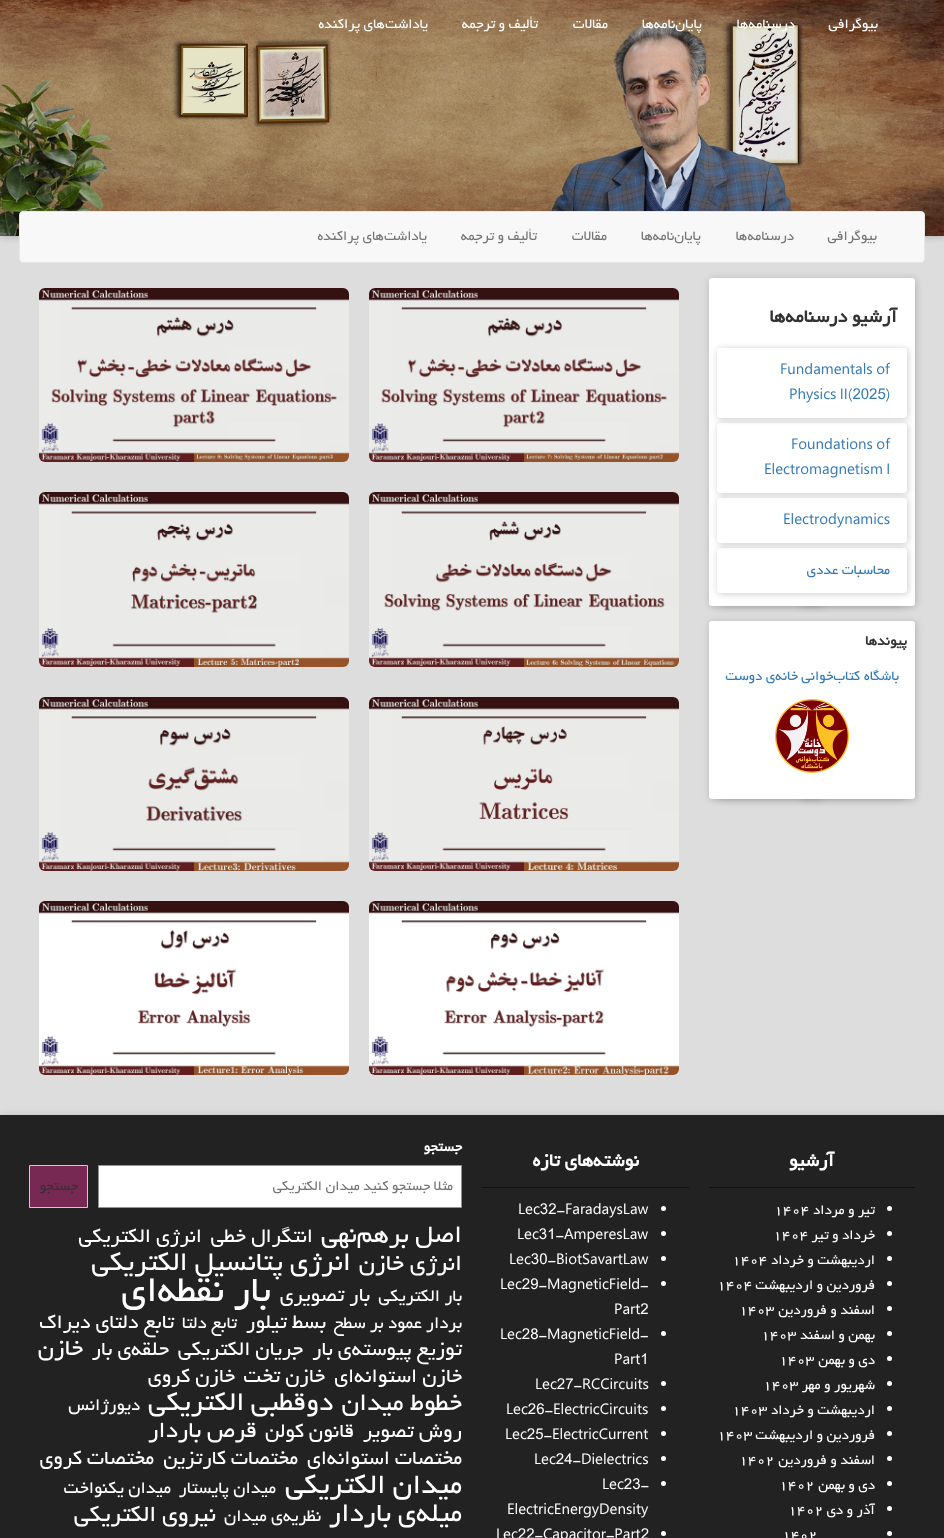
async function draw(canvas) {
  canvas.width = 944;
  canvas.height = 1538;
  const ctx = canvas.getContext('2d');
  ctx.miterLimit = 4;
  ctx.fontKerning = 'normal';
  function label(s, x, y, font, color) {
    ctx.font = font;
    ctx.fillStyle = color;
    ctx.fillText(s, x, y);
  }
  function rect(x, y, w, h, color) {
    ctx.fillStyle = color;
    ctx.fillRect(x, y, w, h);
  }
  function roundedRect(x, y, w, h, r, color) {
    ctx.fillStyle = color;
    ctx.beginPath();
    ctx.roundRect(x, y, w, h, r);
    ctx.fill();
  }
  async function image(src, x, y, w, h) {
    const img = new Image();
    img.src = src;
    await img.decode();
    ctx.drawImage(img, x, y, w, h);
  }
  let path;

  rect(0, 0, 944, 1538, '#ddd');
  ctx.fillStyle = '#00000033';
  ctx.filter = 'blur(3.5px)';
  ctx.beginPath();
  ctx.rect(1, 1, 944, 236);
  ctx.fill();
  ctx.filter = 'none';
  await image('assets/img1.png', 0, 0, 944, 236);
  ctx.direction = 'rtl';
  label('بیوگرافی', 878, 28, '15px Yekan', '#fff');
  label('درسنامه‌ها', 795, 28, '15px Yekan', '#fff');
  label('پایان‌نامه‌ها', 702, 28, '15px Yekan', '#fff');
  label('مقالات', 608, 28, '15px Yekan', '#fff');
  label('تألیف و ترجمه', 538, 28, '15px Yekan', '#fff');
  label('یاداشت‌های پراکنده', 428, 28, '15px Yekan', '#fff');
  ctx.fillStyle = '#f8f8f8';
  ctx.beginPath();
  ctx.roundRect(19.5, 211.5, 905, 51, 3.5);
  ctx.fill();
  ctx.strokeStyle = '#e7e7e7';
  ctx.stroke();
  label('بیوگرافی', 877, 240, '15px Yekan', '#757575');
  label('درسنامه‌ها', 794, 240, '15px Yekan', '#757575');
  label('پایان‌نامه‌ها', 701, 240, '15px Yekan', '#757575');
  label('مقالات', 607, 240, '15px Yekan', '#757575');
  label('تألیف و ترجمه', 537, 240, '15px Yekan', '#757575');
  label('یاداشت‌های پراکنده', 427, 240, '15px Yekan', '#757575');
  ctx.fillStyle = '#00000033';
  ctx.filter = 'blur(3.5px)';
  ctx.beginPath();
  ctx.roundRect(710, 279, 206, 328, 3);
  ctx.fill();
  ctx.filter = 'none';
  ctx.filter = 'blur(5px)';
  ctx.beginPath();
  ctx.rect(802, 555, 102, 50);
  ctx.fill();
  ctx.filter = 'none';
  ctx.filter = 'blur(5px)';
  ctx.beginPath();
  ctx.rect(720, 555, 102, 50);
  ctx.fill();
  ctx.filter = 'none';
  roundedRect(709, 278, 206, 328, 3, '#fff');
  label('آرشیو درسنامه‌ها', 897, 322, 'bold 20px Yekan', '#333');
  ctx.save();
  path = new Path2D('M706 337H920V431H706ZM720 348H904C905.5 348 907 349.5 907 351V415C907 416.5 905.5 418 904 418H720C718.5 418 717 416.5 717 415V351C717 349.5 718.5 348 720 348Z');
  ctx.clip(path, 'evenodd');
  ctx.fillStyle = '#00000033';
  ctx.filter = 'blur(3.5px)';
  ctx.beginPath();
  ctx.roundRect(718, 349, 190, 70, 3);
  ctx.fill();
  ctx.filter = 'none';
  ctx.restore();
  ctx.direction = 'ltr';
  label('Fundamentals of', 780, 374, '15px Yekan', '#337ab7');
  label('Physics II(2025)', 789, 399, '15px Yekan', '#337ab7');
  ctx.save();
  path = new Path2D('M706 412H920V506H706ZM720 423H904C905.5 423 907 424.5 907 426V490C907 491.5 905.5 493 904 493H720C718.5 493 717 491.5 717 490V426C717 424.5 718.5 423 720 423Z');
  ctx.clip(path, 'evenodd');
  ctx.fillStyle = '#00000033';
  ctx.filter = 'blur(3.5px)';
  ctx.beginPath();
  ctx.roundRect(718, 424, 190, 70, 3);
  ctx.fill();
  ctx.filter = 'none';
  ctx.restore();
  label('Foundations of', 791, 449, '15px Yekan', '#337ab7');
  label('Electromagnetism I', 764, 474, '15px Yekan', '#337ab7');
  ctx.save();
  path = new Path2D('M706 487H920V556H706ZM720 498H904C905.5 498 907 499.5 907 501V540C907 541.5 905.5 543 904 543H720C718.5 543 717 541.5 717 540V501C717 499.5 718.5 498 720 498Z');
  ctx.clip(path, 'evenodd');
  ctx.fillStyle = '#00000033';
  ctx.filter = 'blur(3.5px)';
  ctx.beginPath();
  ctx.roundRect(718, 499, 190, 45, 3);
  ctx.fill();
  ctx.filter = 'none';
  ctx.restore();
  label('Electrodynamics', 783, 524, '15px Yekan', '#337ab7');
  ctx.save();
  path = new Path2D('M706 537H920V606H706ZM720 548H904C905.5 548 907 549.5 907 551V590C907 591.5 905.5 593 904 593H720C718.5 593 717 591.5 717 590V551C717 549.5 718.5 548 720 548Z');
  ctx.clip(path, 'evenodd');
  ctx.fillStyle = '#00000033';
  ctx.filter = 'blur(3.5px)';
  ctx.beginPath();
  ctx.roundRect(718, 549, 190, 45, 3);
  ctx.fill();
  ctx.filter = 'none';
  ctx.restore();
  ctx.direction = 'rtl';
  label('محاسبات عددی', 890, 574, '15px Yekan', '#337ab7');
  ctx.fillStyle = '#00000033';
  ctx.filter = 'blur(3.5px)';
  ctx.beginPath();
  ctx.roundRect(710, 622, 206, 178, 3);
  ctx.fill();
  ctx.filter = 'none';
  ctx.filter = 'blur(5px)';
  ctx.beginPath();
  ctx.rect(802, 778, 102, 20);
  ctx.fill();
  ctx.filter = 'none';
  ctx.filter = 'blur(5px)';
  ctx.beginPath();
  ctx.rect(720, 778, 102, 20);
  ctx.fill();
  ctx.filter = 'none';
  roundedRect(709, 621, 206, 178, 3, '#fff');
  label('پیوندها', 907, 645, 'bold 15px Yekan', '#333');
  label('باشگاه', 899, 680, '15px Yekan', '#337ab7');
  label('کتاب‌خوانی', 860, 680, '15px Yekan', '#337ab7');
  label('خانه‌ی دوست', 798, 680, '15px Yekan', '#337ab7');
  await image('assets/img2.png', 775, 699, 74, 74);
  await image('assets/img3.png', 369, 288, 310, 174);
  await image('assets/img4.png', 39, 288, 310, 174);
  await image('assets/img5.png', 369, 492, 310, 175);
  await image('assets/img6.png', 39, 492, 310, 175);
  await image('assets/img7.png', 369, 697, 310, 174);
  await image('assets/img8.png', 39, 697, 310, 174);
  await image('assets/img9.png', 369, 901, 310, 174);
  await image('assets/img10.png', 39, 901, 310, 174);
  ctx.fillStyle = '#00000033';
  ctx.filter = 'blur(3.5px)';
  ctx.beginPath();
  ctx.rect(1, 1116, 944, 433);
  ctx.fill();
  ctx.filter = 'none';
  rect(0, 1115, 944, 423, '#222');
  rect(709, 1187, 206, 1, '#111');
  label('آرشیو', 834, 1166, 'bold 20px Yekan', '#fff');
  ctx.beginPath();
  ctx.arc(889.5, 1208.5, 2.5, 0, 2 * Math.PI);
  ctx.fill();
  label('تیر و مرداد', 875, 1214, '15px Yekan', '#fff');
  ctx.direction = 'ltr';
  label('۱۴۰۴', 774, 1214, '15px Yekan', '#fff');
  ctx.beginPath();
  ctx.arc(889.5, 1233.5, 2.5, 0, 2 * Math.PI);
  ctx.fill();
  ctx.direction = 'rtl';
  label('خرداد و تیر', 875, 1239, '15px Yekan', '#fff');
  ctx.direction = 'ltr';
  label('۱۴۰۴', 773, 1239, '15px Yekan', '#fff');
  ctx.beginPath();
  ctx.arc(889.5, 1258.5, 2.5, 0, 2 * Math.PI);
  ctx.fill();
  ctx.direction = 'rtl';
  label('اردیبهشت و خرداد', 875, 1264, '15px Yekan', '#fff');
  ctx.direction = 'ltr';
  label('۱۴۰۴', 732, 1264, '15px Yekan', '#fff');
  ctx.beginPath();
  ctx.arc(889.5, 1283.5, 2.5, 0, 2 * Math.PI);
  ctx.fill();
  ctx.direction = 'rtl';
  label('فروردین و اردیبهشت', 875, 1289, '15px Yekan', '#fff');
  ctx.direction = 'ltr';
  label('۱۴۰۴', 717, 1289, '15px Yekan', '#fff');
  ctx.beginPath();
  ctx.arc(889.5, 1308.5, 2.5, 0, 2 * Math.PI);
  ctx.fill();
  ctx.direction = 'rtl';
  label('اسفند و فروردین', 875, 1314, '15px Yekan', '#fff');
  ctx.direction = 'ltr';
  label('۱۴۰۳', 739, 1314, '15px Yekan', '#fff');
  ctx.beginPath();
  ctx.arc(889.5, 1333.5, 2.5, 0, 2 * Math.PI);
  ctx.fill();
  ctx.direction = 'rtl';
  label('بهمن و اسفند', 875, 1339, '15px Yekan', '#fff');
  ctx.direction = 'ltr';
  label('۱۴۰۳', 761, 1339, '15px Yekan', '#fff');
  ctx.beginPath();
  ctx.arc(889.5, 1358.5, 2.5, 0, 2 * Math.PI);
  ctx.fill();
  ctx.direction = 'rtl';
  label('دی و بهمن', 875, 1364, '15px Yekan', '#fff');
  ctx.direction = 'ltr';
  label('۱۴۰۳', 779, 1364, '15px Yekan', '#fff');
  ctx.beginPath();
  ctx.arc(889.5, 1383.5, 2.5, 0, 2 * Math.PI);
  ctx.fill();
  ctx.direction = 'rtl';
  label('شهریور و مهر', 875, 1389, '15px Yekan', '#fff');
  ctx.direction = 'ltr';
  label('۱۴۰۳', 763, 1389, '15px Yekan', '#fff');
  ctx.beginPath();
  ctx.arc(889.5, 1408.5, 2.5, 0, 2 * Math.PI);
  ctx.fill();
  ctx.direction = 'rtl';
  label('اردیبهشت و خرداد', 875, 1414, '15px Yekan', '#fff');
  ctx.direction = 'ltr';
  label('۱۴۰۳', 732, 1414, '15px Yekan', '#fff');
  ctx.beginPath();
  ctx.arc(889.5, 1433.5, 2.5, 0, 2 * Math.PI);
  ctx.fill();
  ctx.direction = 'rtl';
  label('فروردین و اردیبهشت', 875, 1439, '15px Yekan', '#fff');
  ctx.direction = 'ltr';
  label('۱۴۰۳', 717, 1439, '15px Yekan', '#fff');
  ctx.beginPath();
  ctx.arc(889.5, 1458.5, 2.5, 0, 2 * Math.PI);
  ctx.fill();
  ctx.direction = 'rtl';
  label('اسفند و فروردین', 875, 1464, '15px Yekan', '#fff');
  ctx.direction = 'ltr';
  label('۱۴۰۲', 739, 1464, '15px Yekan', '#fff');
  ctx.beginPath();
  ctx.arc(889.5, 1483.5, 2.5, 0, 2 * Math.PI);
  ctx.fill();
  ctx.direction = 'rtl';
  label('دی و بهمن', 875, 1489, '15px Yekan', '#fff');
  ctx.direction = 'ltr';
  label('۱۴۰۲', 779, 1489, '15px Yekan', '#fff');
  ctx.beginPath();
  ctx.arc(889.5, 1508.5, 2.5, 0, 2 * Math.PI);
  ctx.fill();
  ctx.direction = 'rtl';
  label('آذر و دی', 875, 1514, '15px Yekan', '#fff');
  ctx.direction = 'ltr';
  label('۱۴۰۲', 788, 1514, '15px Yekan', '#fff');
  ctx.beginPath();
  ctx.arc(889.5, 1533.5, 2.5, 0, 2 * Math.PI);
  ctx.fill();
  label('۱۴۰۲', 782, 1539, '15px Yekan', '#fff');
  rect(482, 1187, 207, 1, '#111');
  ctx.direction = 'rtl';
  label('نوشته‌های تازه', 639, 1166, 'bold 20px Yekan', '#fff');
  ctx.beginPath();
  ctx.arc(663.5, 1208.5, 2.5, 0, 2 * Math.PI);
  ctx.fill();
  ctx.direction = 'ltr';
  label('Lec32-FaradaysLaw', 518, 1214, '15px Yekan', '#fff');
  ctx.beginPath();
  ctx.arc(663.5, 1233.5, 2.5, 0, 2 * Math.PI);
  ctx.fill();
  label('Lec31-AmperesLaw', 517, 1239, '15px Yekan', '#fff');
  ctx.beginPath();
  ctx.arc(663.5, 1258.5, 2.5, 0, 2 * Math.PI);
  ctx.fill();
  label('Lec30-BiotSavartLaw', 509, 1264, '15px Yekan', '#fff');
  ctx.beginPath();
  ctx.arc(663.5, 1283.5, 2.5, 0, 2 * Math.PI);
  ctx.fill();
  label('Lec29-MagneticField-', 500, 1289, '15px Yekan', '#fff');
  label('Part2', 614, 1314, '15px Yekan', '#fff');
  ctx.beginPath();
  ctx.arc(663.5, 1333.5, 2.5, 0, 2 * Math.PI);
  ctx.fill();
  label('Lec28-MagneticField-', 500, 1339, '15px Yekan', '#fff');
  label('Part1', 614, 1364, '15px Yekan', '#fff');
  ctx.beginPath();
  ctx.arc(663.5, 1383.5, 2.5, 0, 2 * Math.PI);
  ctx.fill();
  label('Lec27-RCCircuits', 535, 1389, '15px Yekan', '#fff');
  ctx.beginPath();
  ctx.arc(663.5, 1408.5, 2.5, 0, 2 * Math.PI);
  ctx.fill();
  label('Lec26-ElectricCircuits', 506, 1414, '15px Yekan', '#fff');
  ctx.beginPath();
  ctx.arc(663.5, 1433.5, 2.5, 0, 2 * Math.PI);
  ctx.fill();
  label('Lec25-ElectricCurrent', 505, 1439, '15px Yekan', '#fff');
  ctx.beginPath();
  ctx.arc(663.5, 1458.5, 2.5, 0, 2 * Math.PI);
  ctx.fill();
  label('Lec24-Dielectrics', 534, 1464, '15px Yekan', '#fff');
  ctx.beginPath();
  ctx.arc(663.5, 1483.5, 2.5, 0, 2 * Math.PI);
  ctx.fill();
  label('Lec23-', 602, 1489, '15px Yekan', '#fff');
  label('ElectricEnergyDensity', 507, 1514, '15px Yekan', '#fff');
  ctx.beginPath();
  ctx.arc(663.5, 1533.5, 2.5, 0, 2 * Math.PI);
  ctx.fill();
  label('Lec22-Capacitor-Part2', 496, 1539, '15px Yekan', '#fff');
  ctx.direction = 'rtl';
  label('جستجو', 462, 1151, 'bold 15px Yekan', '#fff');
  ctx.beginPath();
  ctx.rect(98.5, 1165.5, 363, 42);
  ctx.fill();
  ctx.strokeStyle = '#949494';
  ctx.stroke();
  label('مثلا جستجو کنید میدان الکتریکی', 453, 1190, '15px Yekan', '#757575');
  ctx.fillStyle = '#772953';
  ctx.beginPath();
  ctx.rect(29.5, 1165.5, 58, 42);
  ctx.fill();
  ctx.strokeStyle = '#ccc';
  ctx.stroke();
  label('جستجو', 78, 1190, '15px Yekan', '#333');
  label('اصل برهم‌نهی', 462, 1242, '27.25px Yekan', '#fff');
  label('انتگرال خطی', 313, 1242, '22px Yekan', '#fff');
  label('انرژی الکتریکی', 202, 1242, '22px Yekan', '#fff');
  label('انرژی خازن', 462, 1270, '25px Yekan', '#fff');
  label('انرژی پتانسیل الکتریکی', 351, 1270, '29.25px Yekan', '#fff');
  label('بار الکتریکی', 462, 1301, '18.75px Yekan', '#fff');
  label('بار تصویری', 370, 1301, '22px Yekan', '#fff');
  label('بار نقطه‌ای', 271, 1301, '40px Yekan', '#fff');
  label('بردار عمود بر سطح', 462, 1328, '18.75px Yekan', '#fff');
  label('بسط تیلور', 326, 1328, '22px Yekan', '#fff');
  label('تابع دلتا', 237, 1328, '18.75px Yekan', '#fff');
  label('تابع دلتای دیراک', 174, 1328, '22px Yekan', '#fff');
  label('توزیع پیوسته‌ی بار', 462, 1355, '22px Yekan', '#fff');
  label('جریان الکتریکی', 303, 1355, '22px Yekan', '#fff');
  label('حلقه‌ی بار', 169, 1355, '22px Yekan', '#fff');
  label('خازن', 83, 1355, '25px Yekan', '#fff');
  label('خازن استوانه‌ای', 462, 1382, '22px Yekan', '#fff');
  label('خازن تخت', 325, 1382, '22px Yekan', '#fff');
  label('خازن کروی', 235, 1382, '22px Yekan', '#fff');
  label('خطوط میدان', 462, 1410, '27.25px Yekan', '#fff');
  label('دوقطبی الکتریکی', 333, 1410, '29.25px Yekan', '#fff');
  label('دیورژانس', 140, 1410, '18.75px Yekan', '#fff');
  label('روش تصویر', 462, 1437, '22px Yekan', '#fff');
  label('قانون کولن', 354, 1437, '22px Yekan', '#fff');
  label('قرص باردار', 257, 1437, '25px Yekan', '#fff');
  label('مختصات استوانه‌ای', 462, 1464, '22px Yekan', '#fff');
  label('مختصات کارتزین', 298, 1464, '22px Yekan', '#fff');
  label('مختصات کروی', 154, 1464, '22px Yekan', '#fff');
  label('میدان الکتریکی', 462, 1493, '30.5px Yekan', '#fff');
  label('میدان پایستار', 276, 1493, '18.75px Yekan', '#fff');
  label('میدان یکنواخت', 171, 1493, '18.75px Yekan', '#fff');
  label('میله‌ی باردار', 462, 1521, '29.25px Yekan', '#fff');
  label('نظریه‌ی میدان', 321, 1521, '18.75px Yekan', '#fff');
  label('نیروی الکتریکی', 216, 1521, '25px Yekan', '#fff');
}

draw(document.querySelector('canvas'));
